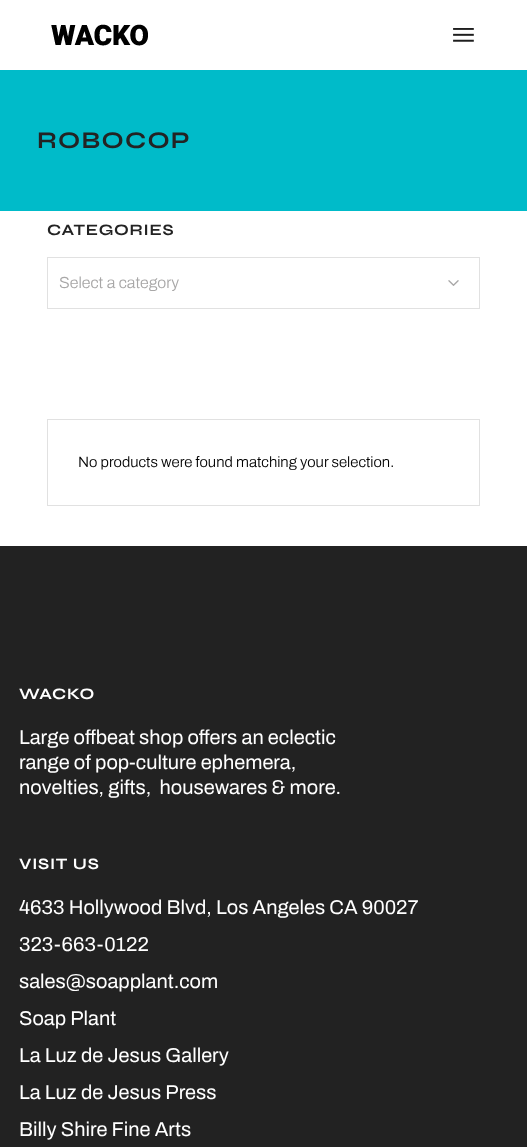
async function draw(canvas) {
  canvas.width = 527;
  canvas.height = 1147;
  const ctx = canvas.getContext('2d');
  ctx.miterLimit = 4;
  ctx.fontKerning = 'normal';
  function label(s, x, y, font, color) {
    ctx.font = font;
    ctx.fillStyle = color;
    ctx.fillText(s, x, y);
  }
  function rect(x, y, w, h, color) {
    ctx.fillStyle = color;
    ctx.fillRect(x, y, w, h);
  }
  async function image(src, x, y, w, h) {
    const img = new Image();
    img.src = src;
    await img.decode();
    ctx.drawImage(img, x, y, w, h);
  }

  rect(0, 0, 527, 1147, '#fff');
  await image('assets/img1.png', 51, 24, 97, 22);
  await image('assets/img2.png', 453, 28, 21, 14);
  rect(0, 70, 527, 141, '#00bbc9');
  ctx.letterSpacing = '1.25px';
  label('ROBOCOP', 37, 148, 'bold 24px Syne', '#232323');
  ctx.letterSpacing = '0.75px';
  label('CATEGORIES', 47, 235, 'bold 16px Syne', '#232323');
  ctx.strokeStyle = '#e1e1e1';
  ctx.strokeRect(47.5, 257.5, 432, 51);
  ctx.letterSpacing = '0px';
  label('Select a category', 59, 288, '300 16px Archivo', '#a8a7a7');
  await image('assets/img3.png', 448, 280, 11, 6);
  ctx.strokeRect(47.5, 419.5, 432, 86);
  label('No products were found matching your selection.', 78, 467, '300 15px Archivo', '#000');
  rect(0, 546, 527, 601, '#222');
  ctx.letterSpacing = '0.75px';
  label('WACKO', 19, 699, 'bold 16px Syne', '#fff');
  ctx.letterSpacing = '0px';
  label('Large offbeat shop offers an eclectic', 19, 744, '20px Archivo', '#fff');
  label('range of pop-culture ephemera,', 19, 769, '20px Archivo', '#fff');
  label('novelties, gifts,  housewares & more.', 19, 794, '20px Archivo', '#fff');
  ctx.letterSpacing = '0.75px';
  label('VISIT US', 19, 869, 'bold 16px Syne', '#fff');
  ctx.letterSpacing = '0px';
  label('4633 Hollywood Blvd, Los Angeles CA 90027', 19, 914, '20px Archivo', '#fff');
  label('323-663-0122', 19, 951, '20px Archivo', '#fff');
  label('sales@soapplant.com', 19, 988, '20px Archivo', '#fff');
  label('Soap Plant', 19, 1025, '20px Archivo', '#fff');
  label('La Luz de Jesus Gallery', 19, 1062, '20px Archivo', '#fff');
  label('La Luz de Jesus Press', 19, 1099, '20px Archivo', '#fff');
  label('Billy Shire Fine Arts', 19, 1136, '20px Archivo', '#fff');
}

draw(document.querySelector('canvas'));
